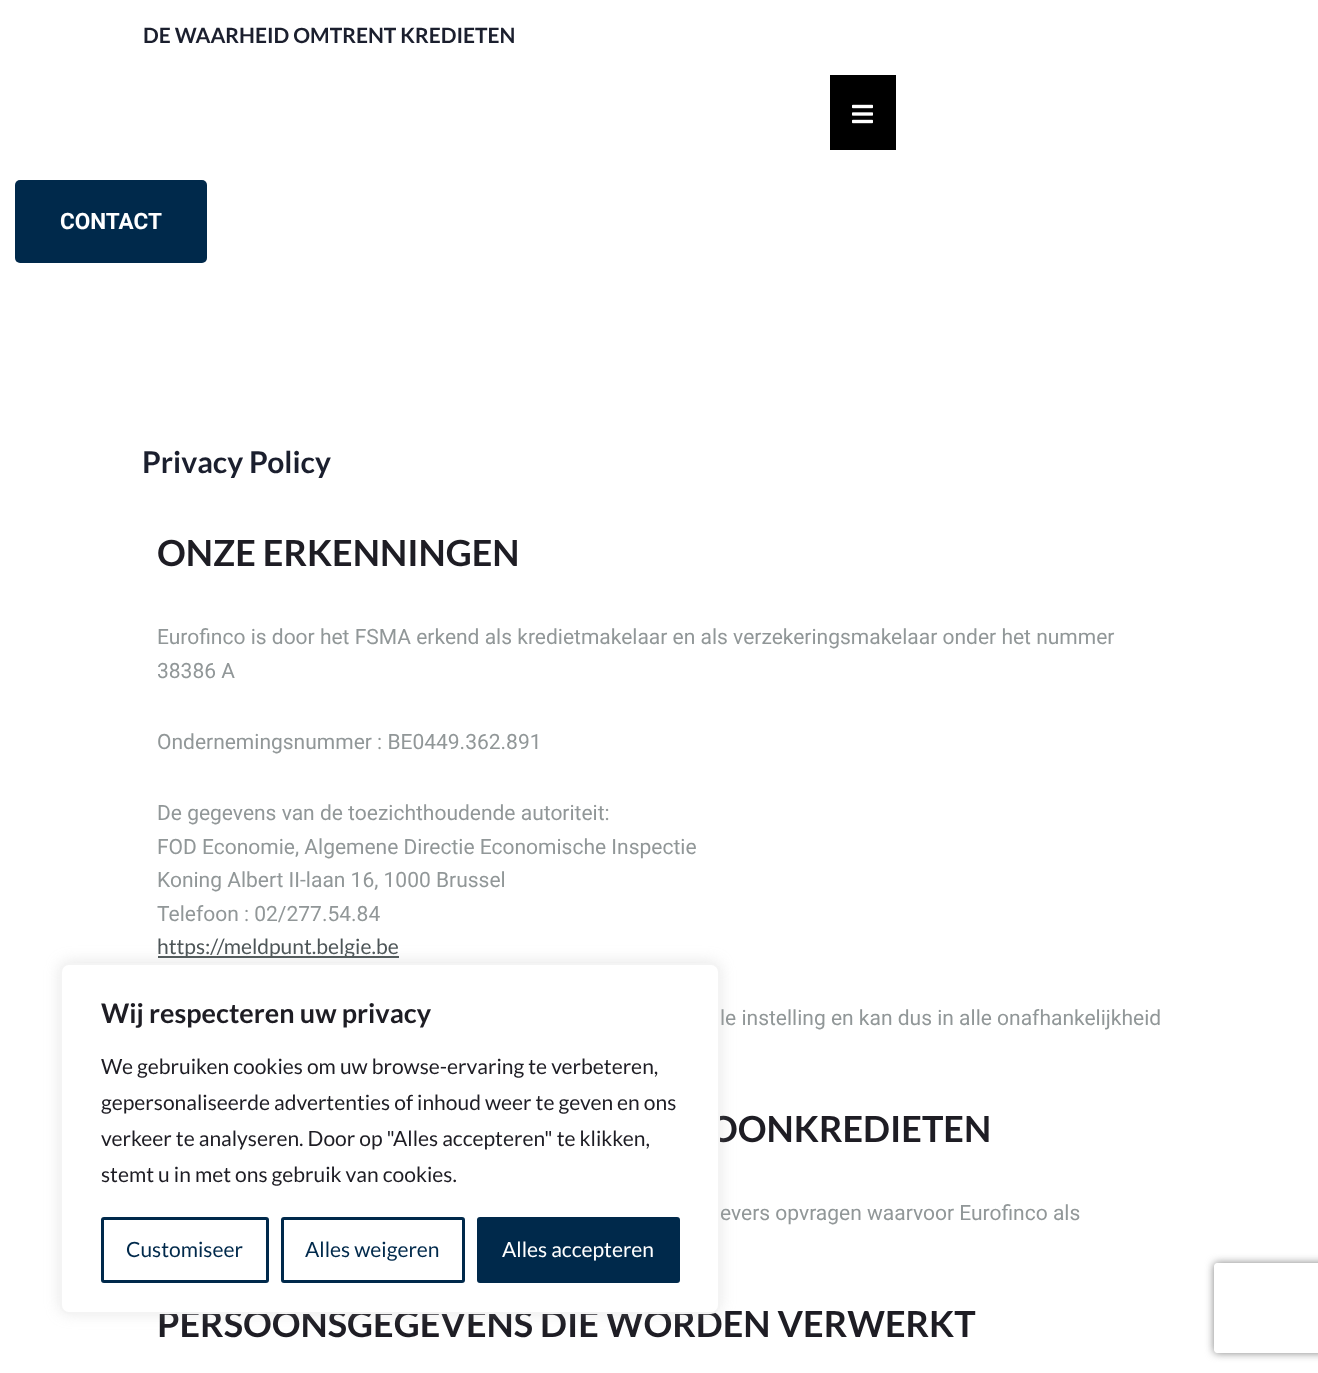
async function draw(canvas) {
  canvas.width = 1318;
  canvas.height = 1373;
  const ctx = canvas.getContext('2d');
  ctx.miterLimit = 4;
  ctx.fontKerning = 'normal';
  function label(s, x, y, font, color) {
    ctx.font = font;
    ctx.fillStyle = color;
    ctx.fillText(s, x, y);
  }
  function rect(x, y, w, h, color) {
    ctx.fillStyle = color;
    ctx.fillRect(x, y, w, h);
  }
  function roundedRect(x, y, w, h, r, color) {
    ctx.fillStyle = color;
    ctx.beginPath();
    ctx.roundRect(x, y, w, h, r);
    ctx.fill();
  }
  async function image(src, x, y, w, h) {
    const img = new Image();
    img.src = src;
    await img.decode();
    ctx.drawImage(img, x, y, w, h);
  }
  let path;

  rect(0, 0, 1318, 1373, '#fff');
  label('DE WAARHEID OMTRENT KREDIETEN', 143, 43, 'bold 21px Lato', '#1b1f2e');
  rect(830, 75, 66, 75, '#000');
  await image('assets/img1.png', 852, 104, 21, 20);
  roundedRect(15, 180, 192, 83, 5, '#00294b');
  label('CONTACT', 60, 229, 'bold 22.5px Roboto', '#fff');
  label('Privacy Policy', 142, 473, 'bold 30px Lato', '#1b1f2e');
  label('ONZE ERKENNINGEN', 157, 566, 'bold 36px Lato', '#1e1d24');
  label('Eurofinco is door het FSMA erkend als kredietmakelaar en als verzekeringsmakelaar onder het nummer', 157, 644, '21px Roboto', '#919798');
  label('38386 A', 157, 678, '21px Roboto', '#919798');
  label('Ondernemingsnummer : BE0449.362.891', 157, 749, '21px Roboto', '#919798');
  label('De gegevens van de toezichthoudende autoriteit:', 157, 820, '21px Roboto', '#919798');
  label('FOD Economie, Algemene Directie Economische Inspectie', 157, 854, '21px Roboto', '#919798');
  label('Koning Albert II-laan 16, 1000 Brussel', 157, 887, '21px Roboto', '#919798');
  label('Telefoon : 02/277.54.84', 157, 921, '21px Roboto', '#919798');
  rect(158, 956, 241, 2, '#4d5557');
  label('https://meldpunt.belgie.be', 157, 954, '21px Lato', '#4d5557');
  label('le instelling en kan dus in alle onafhankelijkheid', 720, 1025, '21px Roboto', '#919798');
  label('OONKREDIETEN', 709, 1142, 'bold 36px Lato', '#1e1d24');
  label('evers opvragen waarvoor Eurofinco als', 720, 1220, '21px Roboto', '#919798');
  label('PERSOONSGEGEVENS DIE WORDEN VERWERKT', 157, 1337, 'bold 36px Lato', '#1e1d24');
  ctx.fillStyle = '#acabab4d';
  ctx.filter = 'blur(7.5px)';
  ctx.beginPath();
  ctx.roundRect(60, 962, 660, 351, 9);
  ctx.fill();
  ctx.filter = 'none';
  ctx.fillStyle = '#fff';
  ctx.beginPath();
  ctx.roundRect(61, 964, 658, 349, 8);
  ctx.fill();
  ctx.strokeStyle = '#f4f4f4';
  ctx.lineWidth = 2;
  ctx.stroke();
  label('Wij respecteren uw privacy', 101, 1023, 'bold 27px Lato', '#1e1d24');
  label('We gebruiken cookies om uw browse-ervaring te verbeteren,', 101, 1074, '21px Lato', '#1e1d24');
  label('gepersonaliseerde advertenties of inhoud weer te geven en ons', 101, 1110, '21px Lato', '#1e1d24');
  label('verkeer te analyseren. Door op "Alles accepteren" te klikken,', 101, 1146, '21px Lato', '#1e1d24');
  label('stemt u in met ons gebruik van cookies.', 101, 1182, '21px Lato', '#1e1d24');
  ctx.beginPath();
  ctx.roundRect(102.5, 1218.5, 165, 63, 1.5);
  ctx.strokeStyle = '#00294b';
  ctx.lineWidth = 3;
  ctx.stroke();
  label('Customiseer', 126, 1257, '21px Lato', '#00294b');
  ctx.beginPath();
  ctx.roundRect(282.5, 1218.5, 181, 63, 1.5);
  ctx.stroke();
  label('Alles weigeren', 305, 1257, '21px Lato', '#00294b');
  ctx.beginPath();
  ctx.roundRect(478.5, 1218.5, 200, 63, 1.5);
  ctx.fill();
  ctx.stroke();
  label('Alles accepteren', 502, 1257, '21px Lato', '#fff');
  ctx.save();
  path = new Path2D('M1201 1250H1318V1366H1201ZM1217 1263H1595C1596.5 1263 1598 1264.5 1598 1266V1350C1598 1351.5 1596.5 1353 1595 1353H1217C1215.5 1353 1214 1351.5 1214 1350V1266C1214 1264.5 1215.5 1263 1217 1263Z');
  ctx.clip(path, 'evenodd');
  ctx.fillStyle = '#808080';
  ctx.filter = 'blur(4px)';
  ctx.beginPath();
  ctx.roundRect(1214, 1263, 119, 90, 3);
  ctx.fill();
  ctx.filter = 'none';
  ctx.restore();
}

draw(document.querySelector('canvas'));
